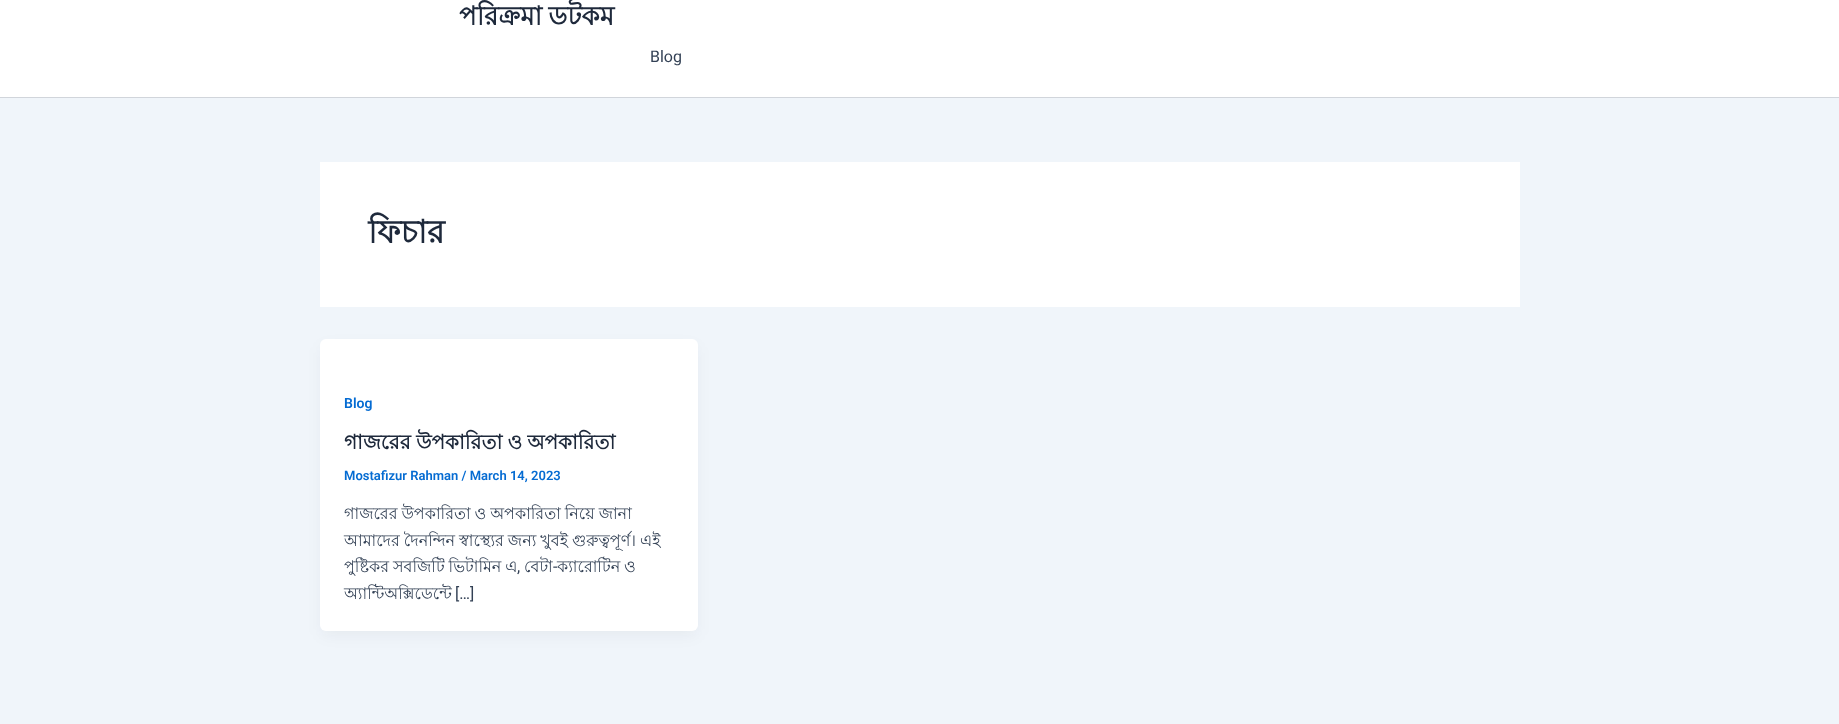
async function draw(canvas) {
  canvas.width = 1839;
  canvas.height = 724;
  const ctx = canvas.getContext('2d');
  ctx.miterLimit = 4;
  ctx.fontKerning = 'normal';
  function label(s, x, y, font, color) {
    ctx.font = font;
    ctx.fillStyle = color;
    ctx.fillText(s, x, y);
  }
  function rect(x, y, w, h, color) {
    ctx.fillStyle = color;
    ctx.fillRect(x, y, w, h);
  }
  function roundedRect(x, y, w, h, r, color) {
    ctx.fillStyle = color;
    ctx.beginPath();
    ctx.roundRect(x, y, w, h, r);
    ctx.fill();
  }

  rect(0, 0, 1839, 724, '#f0f5fa');
  rect(0, 0, 1839, 97, '#fff');
  rect(0, 97, 1839, 1, '#d1d5db');
  ctx.wordSpacing = '-1px';
  label('পরিক্রমা ডটকম', 459, 25, 'bold 26px Lohit Bengali', '#1e293b');
  ctx.wordSpacing = '0px';
  label('Blog', 650, 62, '16px Roboto', '#334155');
  rect(320, 162, 1200, 145, '#fff');
  label('ফিচার', 368, 243, 'bold 32px Lohit Bengali', '#1e293b');
  ctx.fillStyle = '#1018280d';
  ctx.filter = 'blur(7.5px)';
  ctx.beginPath();
  ctx.roundRect(322, 347, 374, 288, 4);
  ctx.fill();
  ctx.filter = 'none';
  roundedRect(320, 339, 378, 292, 6, '#fff');
  label('Blog', 344, 408, '600 14px Roboto', '#046bd2');
  ctx.wordSpacing = '-0.5px';
  label('গাজরের উপকারিতা ও অপকারিতা', 344, 449, 'bold 20px Lohit Bengali', '#1e293b');
  ctx.wordSpacing = '0px';
  label('Mostafizur Rahman / March 14, 2023', 344, 480, '600 13px Roboto', '#046bd2');
  ctx.wordSpacing = '-0.5px';
  label('গাজরের উপকারিতা ও অপকারিতা নিয়ে জানা', 344, 519, '16px Lohit Bengali', '#334155');
  label('আমাদের দৈনন্দিন স্বাস্থ্যের জন্য খুবই গুরুত্বপূর্ণ। এই', 344, 546, '16px Lohit Bengali', '#334155');
  label('পুষ্টিকর সবজিটি ভিটামিন এ', 344, 572, '16px Lohit Bengali', '#334155');
  ctx.wordSpacing = '0px';
  label('বেটা', 524, 572, '16px Lohit Bengali', '#334155');
  label('-', 553, 572, '16px Roboto', '#334155');
  ctx.wordSpacing = '-0.5px';
  label('ক্যারোটিন ও', 557, 572, '16px Lohit Bengali', '#334155');
  ctx.wordSpacing = '0px';
  label(',', 517, 572, '16px Roboto', '#334155');
  label('অ্যান্টিঅক্সিডেন্টে', 344, 599, '16px Lohit Bengali', '#334155');
  label('[…]', 455, 599, '16px Roboto', '#334155');
}

draw(document.querySelector('canvas'));
